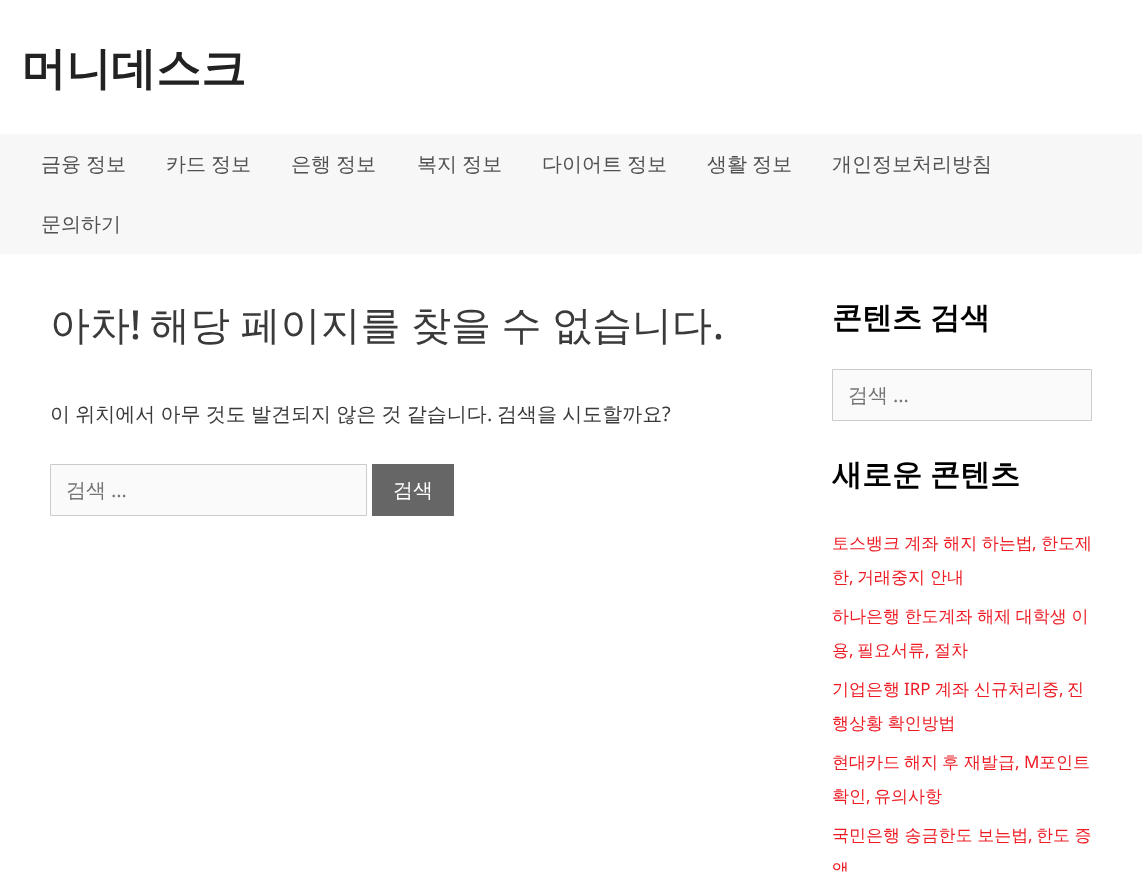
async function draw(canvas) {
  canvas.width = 1142;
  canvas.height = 872;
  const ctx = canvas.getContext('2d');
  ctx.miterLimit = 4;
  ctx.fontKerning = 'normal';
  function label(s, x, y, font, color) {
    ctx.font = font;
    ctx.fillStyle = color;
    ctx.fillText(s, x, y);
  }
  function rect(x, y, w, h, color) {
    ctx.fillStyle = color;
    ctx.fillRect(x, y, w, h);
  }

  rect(0, 0, 1142, 872, '#f7f7f7');
  rect(0, 0, 1142, 134, '#fff');
  label('머니데스크', 21, 84, 'bold 45px WenQuanYi Zen Hei', '#222');
  ctx.wordSpacing = '-1px';
  label('금융 정보', 41, 171, '500 20px WenQuanYi Zen Hei', '#515151');
  label('카드 정보', 166, 171, '500 20px WenQuanYi Zen Hei', '#515151');
  label('은행 정보', 291, 171, '500 20px WenQuanYi Zen Hei', '#515151');
  label('복지 정보', 417, 171, '500 20px WenQuanYi Zen Hei', '#515151');
  label('다이어트 정보', 542, 171, '500 20px WenQuanYi Zen Hei', '#515151');
  label('생활 정보', 707, 171, '500 20px WenQuanYi Zen Hei', '#515151');
  ctx.wordSpacing = '0px';
  label('개인정보처리방침', 832, 171, '500 20px WenQuanYi Zen Hei', '#515151');
  label('문의하기', 41, 231, '500 20px WenQuanYi Zen Hei', '#515151');
  rect(0, 254, 1142, 618, '#fff');
  label('아차', 50, 339, '500 40px WenQuanYi Zen Hei', '#3a3a3a');
  label('!', 130, 339, '500 40px Noto Sans', '#3a3a3a');
  ctx.wordSpacing = '-1.5px';
  label('해당 페이지를 찾을 수 없습니다', 150, 339, '500 40px WenQuanYi Zen Hei', '#3a3a3a');
  ctx.wordSpacing = '0px';
  label('.', 713, 339, '500 40px Noto Sans', '#3a3a3a');
  ctx.wordSpacing = '-0.75px';
  label('이 위치에서 아무 것도 발견되지 않은 것 같습니다', 50, 421, '500 20px WenQuanYi Zen Hei', '#3a3a3a');
  ctx.wordSpacing = '0px';
  label('.', 487, 421, '20px Noto Sans', '#3a3a3a');
  ctx.wordSpacing = '-0.75px';
  label('검색을 시도할까요', 497, 421, '500 20px WenQuanYi Zen Hei', '#3a3a3a');
  ctx.wordSpacing = '0px';
  label('?', 662, 421, '20px Noto Sans', '#3a3a3a');
  ctx.fillStyle = '#fafafa';
  ctx.beginPath();
  ctx.rect(50.5, 464.5, 316, 51);
  ctx.fill();
  ctx.strokeStyle = '#ccc';
  ctx.stroke();
  label('검색', 66, 497, '500 20px WenQuanYi Zen Hei', '#757575');
  label('…', 111, 497, '20px Noto Sans', '#757575');
  rect(372, 464, 82, 52, '#666');
  label('검색', 393, 497, '500 20px WenQuanYi Zen Hei', '#fff');
  ctx.wordSpacing = '-1px';
  label('콘텐츠 검색', 832, 328, 'bold 30px WenQuanYi Zen Hei', '#000');
  ctx.fillStyle = '#fafafa';
  ctx.beginPath();
  ctx.rect(832.5, 369.5, 259, 51);
  ctx.fill();
  ctx.stroke();
  ctx.wordSpacing = '0px';
  label('검색', 848, 402, '500 20px WenQuanYi Zen Hei', '#757575');
  label('…', 893, 402, '20px Noto Sans', '#757575');
  ctx.wordSpacing = '-1px';
  label('새로운 콘텐츠', 832, 485, 'bold 30px WenQuanYi Zen Hei', '#000');
  ctx.wordSpacing = '-0.5px';
  label('토스뱅크 계좌 해지 하는법', 832, 549, '500 17px WenQuanYi Zen Hei', '#ed1c24');
  ctx.wordSpacing = '0px';
  label(',', 1032, 549, '17px Noto Sans', '#ed1c24');
  label('한도제', 1041, 549, '500 17px WenQuanYi Zen Hei', '#ed1c24');
  label('한', 832, 583, '500 17px WenQuanYi Zen Hei', '#ed1c24');
  label(',', 849, 583, '17px Noto Sans', '#ed1c24');
  label('거래중지 안내', 857, 583, '500 17px WenQuanYi Zen Hei', '#ed1c24');
  ctx.wordSpacing = '-0.5px';
  label('하나은행 한도계좌 해제 대학생 이', 832, 622, '500 17px WenQuanYi Zen Hei', '#ed1c24');
  ctx.wordSpacing = '0px';
  label('용', 832, 656, '500 17px WenQuanYi Zen Hei', '#ed1c24');
  label(',', 849, 656, '17px Noto Sans', '#ed1c24');
  label('필요서류', 857, 656, '500 17px WenQuanYi Zen Hei', '#ed1c24');
  label(',', 925, 656, '17px Noto Sans', '#ed1c24');
  label('절차', 934, 656, '500 17px WenQuanYi Zen Hei', '#ed1c24');
  label('기업은행', 832, 695, '500 17px WenQuanYi Zen Hei', '#ed1c24');
  label('IRP', 904, 695, '17px Noto Sans', '#ed1c24');
  label('계좌 신규처리중', 935, 695, '500 17px WenQuanYi Zen Hei', '#ed1c24');
  label(',', 1059, 695, '17px Noto Sans', '#ed1c24');
  label('진', 1067, 695, '500 17px WenQuanYi Zen Hei', '#ed1c24');
  ctx.wordSpacing = '-0.5px';
  label('행상황 확인방법', 832, 729, '500 17px WenQuanYi Zen Hei', '#ed1c24');
  ctx.wordSpacing = '0px';
  label('현대카드', 832, 768, '500 17px WenQuanYi Zen Hei', '#ed1c24');
  label('해지', 904, 768, '500 17px WenQuanYi Zen Hei', '#ed1c24');
  label('후', 942, 768, '500 17px WenQuanYi Zen Hei', '#ed1c24');
  label('재발급', 964, 768, '500 17px WenQuanYi Zen Hei', '#ed1c24');
  label(', M', 1015, 768, '17px Noto Sans', '#ed1c24');
  label('포인트', 1039, 768, '500 17px WenQuanYi Zen Hei', '#ed1c24');
  label('확인', 832, 802, '500 17px WenQuanYi Zen Hei', '#ed1c24');
  label(',', 866, 802, '17px Noto Sans', '#ed1c24');
  label('유의사항', 874, 802, '500 17px WenQuanYi Zen Hei', '#ed1c24');
  ctx.wordSpacing = '-0.5px';
  label('국민은행 송금한도 보는법', 832, 841, '500 17px WenQuanYi Zen Hei', '#ed1c24');
  ctx.wordSpacing = '0px';
  label(',', 1028, 841, '17px Noto Sans', '#ed1c24');
  ctx.wordSpacing = '-0.5px';
  label('한도 증', 1036, 841, '500 17px WenQuanYi Zen Hei', '#ed1c24');
  ctx.wordSpacing = '0px';
  label('액', 832, 875, '500 17px WenQuanYi Zen Hei', '#ed1c24');
}

draw(document.querySelector('canvas'));
